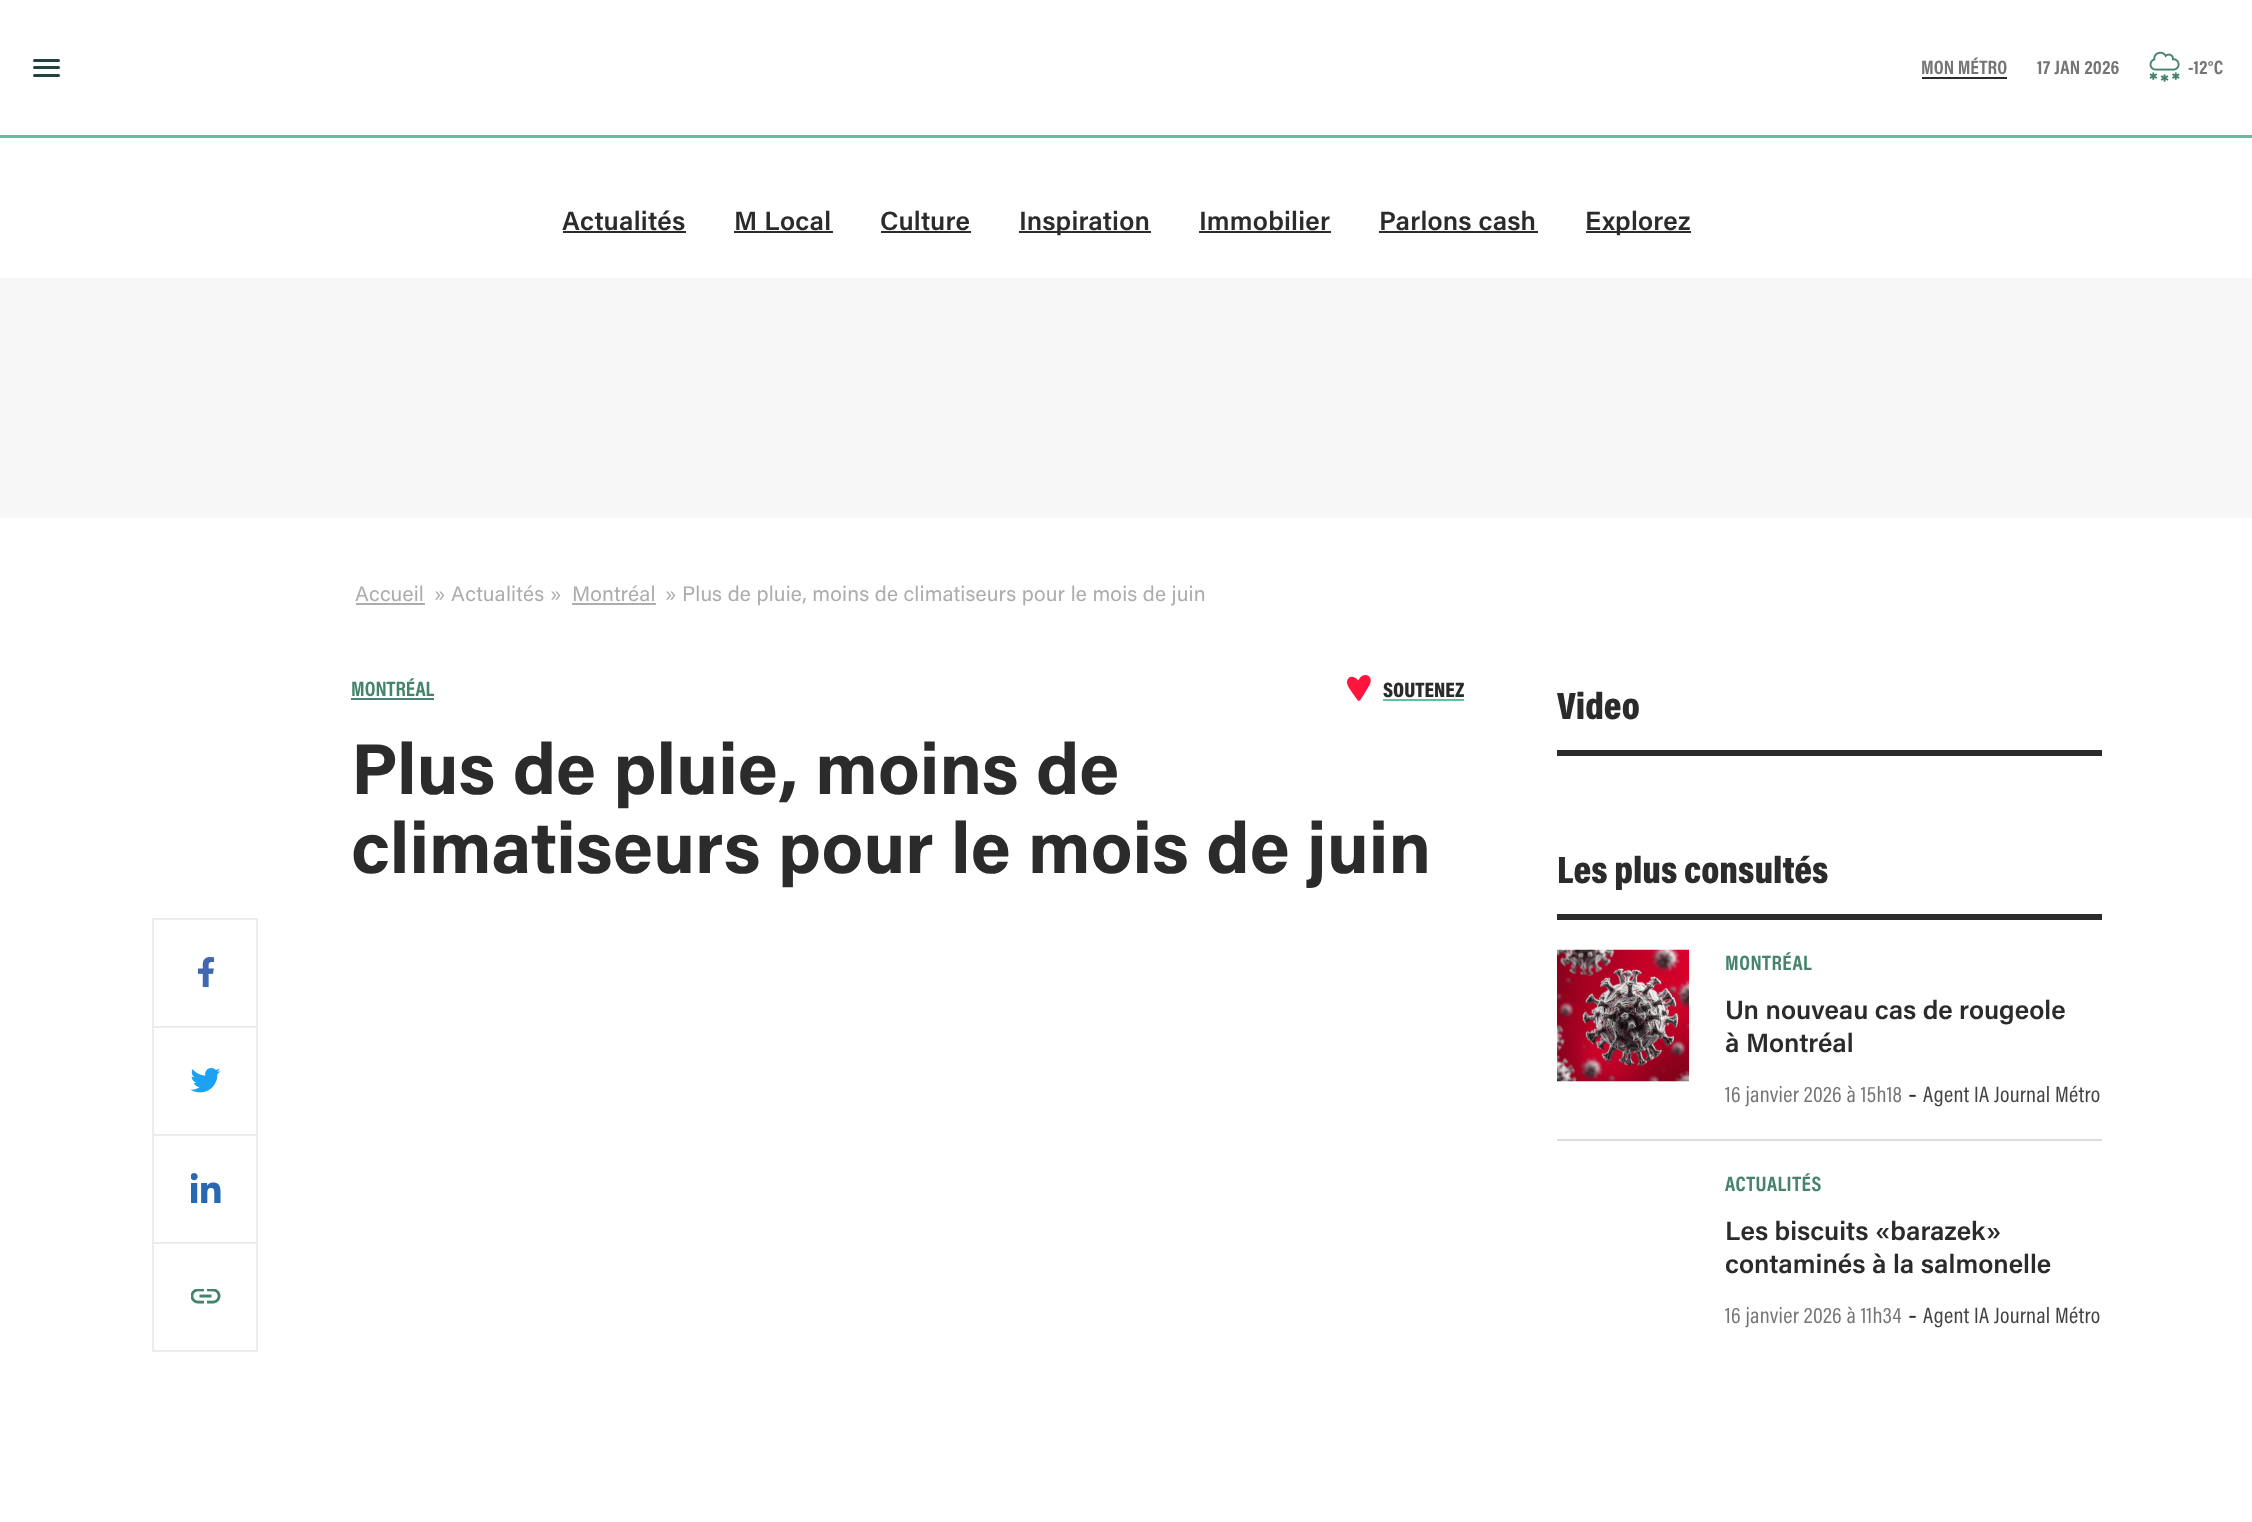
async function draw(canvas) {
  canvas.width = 2252;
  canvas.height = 1522;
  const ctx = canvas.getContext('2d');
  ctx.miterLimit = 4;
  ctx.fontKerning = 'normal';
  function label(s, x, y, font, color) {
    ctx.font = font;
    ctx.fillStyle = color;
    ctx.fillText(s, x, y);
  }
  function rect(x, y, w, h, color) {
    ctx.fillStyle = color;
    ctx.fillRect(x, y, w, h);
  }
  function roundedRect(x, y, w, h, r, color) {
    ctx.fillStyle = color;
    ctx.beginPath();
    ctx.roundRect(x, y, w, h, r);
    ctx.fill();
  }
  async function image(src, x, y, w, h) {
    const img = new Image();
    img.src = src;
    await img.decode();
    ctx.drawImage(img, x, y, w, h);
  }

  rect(0, 0, 2252, 1522, '#fff');
  rect(0, 135, 2252, 3, '#62be9b');
  roundedRect(33, 59, 27, 3, 1.5, '#1d443e');
  roundedRect(33, 66, 27, 3, 1.5, '#1d443e');
  roundedRect(33, 74, 27, 3, 1.5, '#1d443e');
  label('MON MÉTRO', 1921, 74, 'bold 19.5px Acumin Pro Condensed', '#757575');
  rect(1922, 77, 85, 2, '#2b2b2c');
  ctx.letterSpacing = '0.3px';
  label('17 JAN 2026', 2037, 74, 'bold 19.5px Acumin Pro Condensed', '#757575');
  await image('assets/img1.png', 2149, 51, 31, 31);
  label('-12°C', 2188, 74, 'bold 19.5px Acumin Pro Condensed', '#757575');
  ctx.letterSpacing = '0.25px';
  label('Actualités', 562, 230, '600 26.4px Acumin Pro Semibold', '#2b2b2c');
  rect(563, 231, 123, 2, '#2b2b2c');
  label('M Local', 734, 230, '600 26.4px Acumin Pro Semibold', '#2b2b2c');
  rect(734, 231, 99, 2, '#2b2b2c');
  label('Culture', 880, 230, '600 26.4px Acumin Pro Semibold', '#2b2b2c');
  rect(881, 231, 90, 2, '#2b2b2c');
  rect(1019, 231, 132, 2, '#2b2b2c');
  label('Inspiration', 1019, 230, '600 26.4px Acumin Pro Semibold', '#2b2b2c');
  label('Immobilier', 1199, 230, '600 26.4px Acumin Pro Semibold', '#2b2b2c');
  rect(1199, 231, 132, 2, '#2b2b2c');
  label('Parlons cash', 1379, 230, '600 26.4px Acumin Pro Semibold', '#2b2b2c');
  rect(1379, 231, 159, 2, '#2b2b2c');
  rect(1586, 231, 105, 2, '#2b2b2c');
  label('Explorez', 1585, 230, '600 26.4px Acumin Pro Semibold', '#2b2b2c');
  rect(0, 278, 2252, 240, '#f7f7f7');
  ctx.strokeStyle = '#ececec';
  ctx.lineWidth = 2;
  ctx.strokeRect(153, 919, 104, 108);
  await image('assets/img2.png', 198, 957, 17, 30);
  ctx.strokeRect(153, 1027, 104, 108);
  await image('assets/img3.png', 190, 1068, 31, 25);
  ctx.strokeRect(153, 1135, 104, 108);
  await image('assets/img4.png', 191, 1173, 30, 30);
  ctx.strokeRect(153, 1243, 104, 108);
  await image('assets/img5.png', 191, 1289, 30, 15);
  ctx.letterSpacing = '0.17px';
  label('Accueil', 355, 601, '21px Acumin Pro', '#adadad');
  rect(356, 603, 69, 2, '#adadad');
  label('» Actualités »', 434, 601, '21px Acumin Pro', '#adadad');
  label('Montréal', 572, 601, '21px Acumin Pro', '#adadad');
  rect(572, 603, 84, 2, '#adadad');
  label('» Plus de pluie, moins de climatiseurs pour le mois de juin', 665, 601, '21px Acumin Pro', '#adadad');
  ctx.letterSpacing = '0px';
  label('MONTRÉAL', 351, 696, 'bold 21px Acumin Pro Condensed', '#45846b');
  rect(351, 698, 83, 2, '#45846b');
  await image('assets/img6.png', 1347, 675, 24, 26);
  label('SOUTENEZ', 1383, 697, '900 21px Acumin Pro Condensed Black', '#2b2b2c');
  rect(1383, 699, 81, 2, '#62be9b');
  label('Plus de pluie, moins de', 351, 794, 'bold 72px Acumin Pro', '#2b2b2c');
  label('climatiseurs pour le mois de juin', 351, 873, 'bold 72px Acumin Pro', '#2b2b2c');
  rect(1557, 750, 545, 6, '#2b2b2c');
  label('Video', 1557, 719, '900 38.5px Acumin Pro Condensed Black', '#2b2b2c');
  rect(1557, 914, 545, 6, '#2b2b2c');
  label('Les plus consultés', 1557, 883, '900 38.5px Acumin Pro Condensed Black', '#2b2b2c');
  rect(1557, 1139, 545, 2, '#dddcdd');
  await image('assets/img7.png', 1557, 949, 132, 133);
  ctx.letterSpacing = '0.5px';
  label('MONTRÉAL', 1725, 970, 'bold 21px Acumin Pro Condensed', '#45846b');
  ctx.letterSpacing = '0px';
  label('Un nouveau cas de rougeole', 1725, 1019, '600 26.4px Acumin Pro Semibold', '#2b2b2c');
  label('à Montréal', 1725, 1052, '600 26.4px Acumin Pro Semibold', '#2b2b2c');
  ctx.letterSpacing = '0.3px';
  label('16 janvier 2026 à 15h18', 1725, 1102, '22.5px Acumin Pro Condensed', '#757575');
  ctx.letterSpacing = '0px';
  label('-', 1908, 1102, '24px Acumin Pro', '#2b2b2c');
  ctx.letterSpacing = '0.3px';
  label('Agent IA Journal Métro', 1923, 1102, '22.5px Acumin Pro Condensed', '#424242');
  ctx.letterSpacing = '0.5px';
  label('ACTUALITÉS', 1725, 1191, 'bold 21px Acumin Pro Condensed', '#45846b');
  ctx.letterSpacing = '0px';
  label('Les biscuits «barazek»', 1725, 1240, '600 26.4px Acumin Pro Semibold', '#2b2b2c');
  label('contaminés à la salmonelle', 1725, 1273, '600 26.4px Acumin Pro Semibold', '#2b2b2c');
  ctx.letterSpacing = '0.3px';
  label('16 janvier 2026 à 11h34', 1725, 1323, '22.5px Acumin Pro Condensed', '#757575');
  ctx.letterSpacing = '0px';
  label('-', 1908, 1323, '24px Acumin Pro', '#2b2b2c');
  ctx.letterSpacing = '0.3px';
  label('Agent IA Journal Métro', 1923, 1323, '22.5px Acumin Pro Condensed', '#424242');
}

draw(document.querySelector('canvas'));
